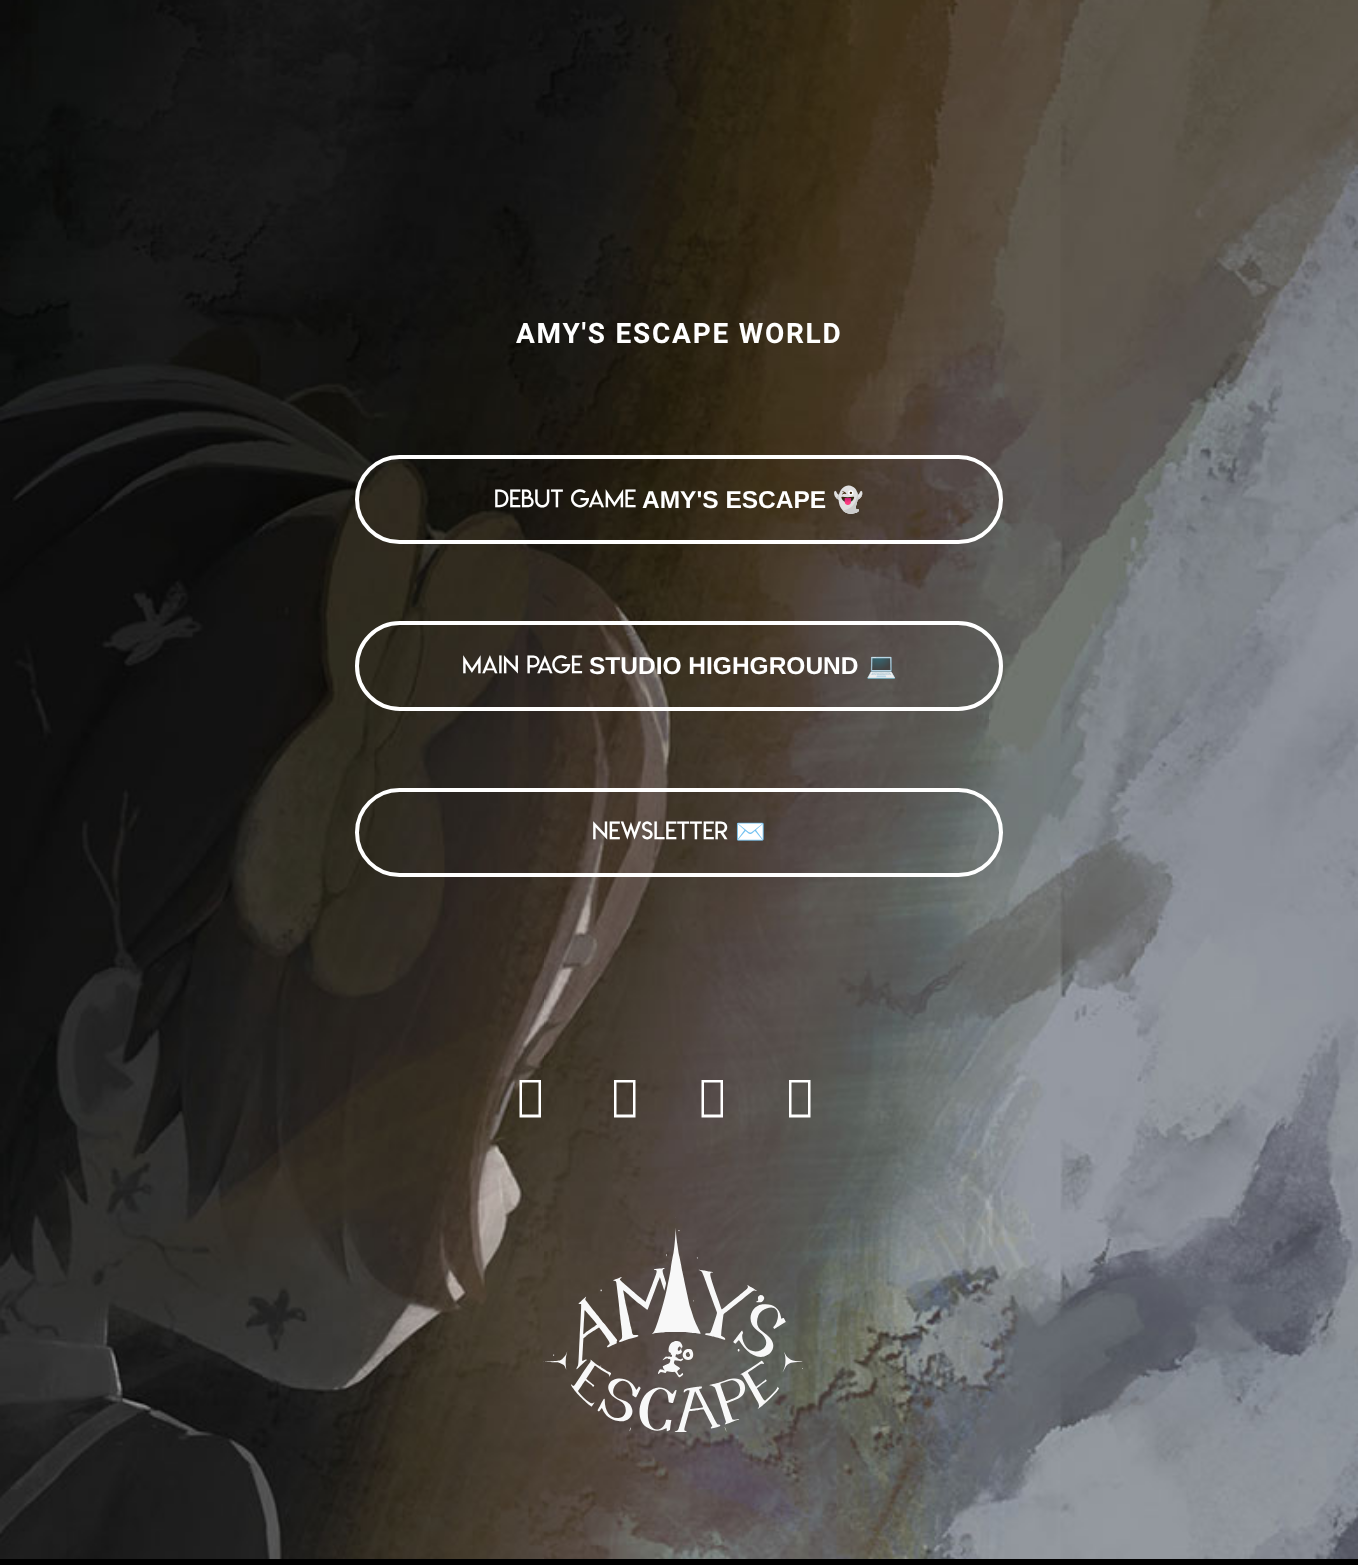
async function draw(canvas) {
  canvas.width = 1358;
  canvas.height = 1565;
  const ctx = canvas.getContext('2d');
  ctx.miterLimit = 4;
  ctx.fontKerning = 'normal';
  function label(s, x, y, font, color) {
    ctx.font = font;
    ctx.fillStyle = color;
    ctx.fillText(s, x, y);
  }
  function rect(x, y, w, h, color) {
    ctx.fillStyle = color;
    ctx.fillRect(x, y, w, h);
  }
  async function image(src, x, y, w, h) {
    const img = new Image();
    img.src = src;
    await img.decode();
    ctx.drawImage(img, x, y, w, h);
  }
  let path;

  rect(0, 0, 1358, 1565, '#000');
  await image('assets/img1.png', 0, 0, 1358, 1559);
  ctx.letterSpacing = '1.75px';
  label('AMY\'S ESCAPE WORLD', 516, 343, 'bold 28px Roboto', '#fff');
  ctx.beginPath();
  ctx.roundRect(357, 457, 644, 85, 42.5);
  ctx.strokeStyle = '#fff';
  ctx.lineWidth = 4;
  ctx.stroke();
  ctx.letterSpacing = '0px';
  label('Debut game', 494, 508, '300 24.5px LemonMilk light', '#fff');
  label('AMY\'S ESCAPE', 642, 508, 'bold 24.5px Liberation Sans', '#fff');
  label('👻', 833, 508, 'bold 24.5px Noto Color Emoji', '#fff');
  ctx.beginPath();
  ctx.roundRect(357, 623, 644, 86, 43);
  ctx.stroke();
  label('Main page', 462, 674, '300 24.5px LemonMilk light', '#fff');
  label('STUDIO HIGHGROUND', 589, 674, 'bold 24.5px Liberation Sans', '#fff');
  label('💻', 866, 674, 'bold 24.5px Noto Color Emoji', '#fff');
  ctx.beginPath();
  ctx.roundRect(357, 790, 644, 85, 42.5);
  ctx.stroke();
  label('NEWSLETTER', 592, 840, '300 24.5px LemonMilk light', '#fff');
  label('✉️', 735, 840, '24.5px Noto Color Emoji', '#fff');
  path = new Path2D('M519.5 1117.5V1080H541V1117.5ZM522 1114.5H538.5V1082.5H522Z');
  ctx.fill(path);
  path = new Path2D('M614 1117.5V1080H635.5V1117.5ZM616.5 1114.5H633V1082.5H616.5Z');
  ctx.fill(path);
  path = new Path2D('M701.5 1117.5V1080H723V1117.5ZM704 1114.5H720.5V1082.5H704Z');
  ctx.fill(path);
  path = new Path2D('M789 1117.5V1080H810.5V1117.5ZM791.5 1114.5H808V1082.5H791.5Z');
  ctx.fill(path);
  await image('assets/img2.png', 543, 1217, 260, 215);
}

draw(document.querySelector('canvas'));
